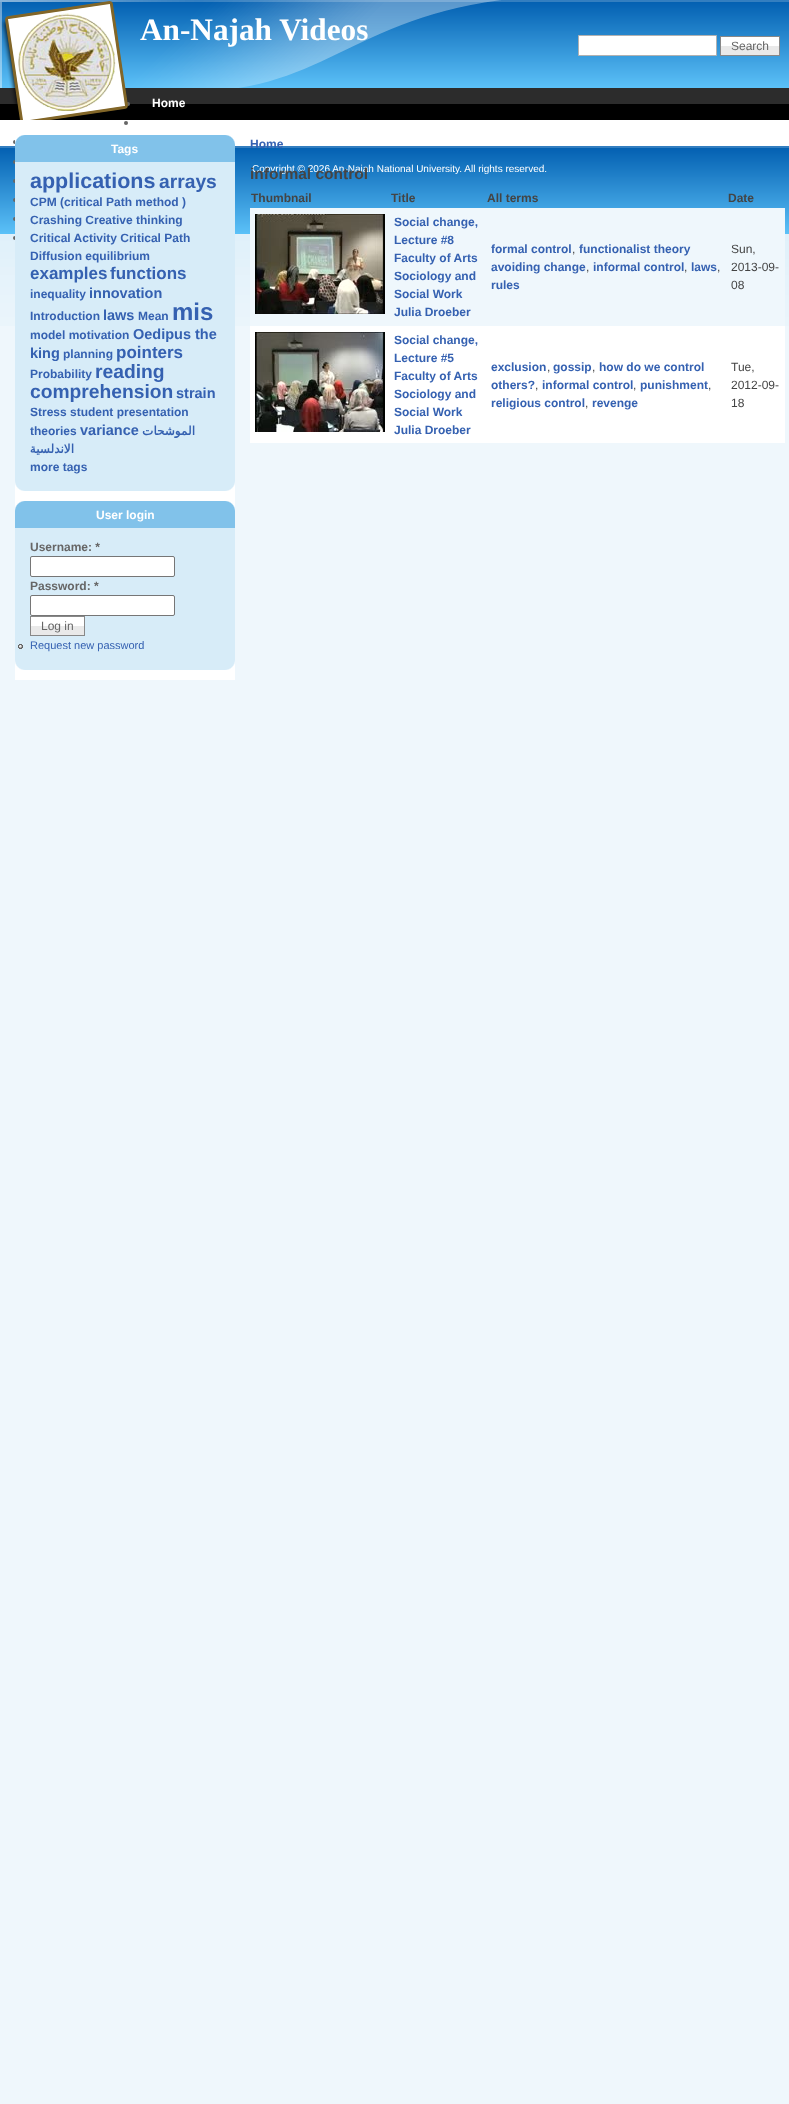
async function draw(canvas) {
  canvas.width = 789;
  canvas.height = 2104;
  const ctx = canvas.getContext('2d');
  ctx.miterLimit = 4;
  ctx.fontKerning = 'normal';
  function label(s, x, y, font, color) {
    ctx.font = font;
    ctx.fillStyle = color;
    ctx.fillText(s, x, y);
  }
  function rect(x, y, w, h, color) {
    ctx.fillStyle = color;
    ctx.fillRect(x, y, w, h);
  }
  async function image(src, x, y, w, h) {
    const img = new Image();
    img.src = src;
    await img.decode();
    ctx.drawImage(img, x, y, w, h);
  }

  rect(0, 0, 789, 2104, '#eff7fc');
  await image('assets/img1.png', 0, 234, 789, 92);
  rect(0, 120, 789, 26, '#fff');
  await image('assets/img2.png', 0, 0, 789, 120);
  await image('assets/img3.png', 0, 0, 501, 88);
  ctx.fillStyle = '#666';
  ctx.beginPath();
  ctx.arc(128, 104, 2, 0, 2 * Math.PI);
  ctx.fill();
  await image('assets/img4.png', 1, 1, 127, 119);
  label('An-Najah Videos', 140, 40, 'bold 31.25px Liberation Serif', '#fff');
  ctx.beginPath();
  ctx.rect(578.5, 35.5, 138, 20);
  ctx.fill();
  ctx.strokeStyle = '#b1b1b1';
  ctx.stroke();
  rect(721, 37, 58, 9, '#fff');
  rect(721, 46, 58, 9, '#e9e9e9');
  ctx.strokeStyle = '#888';
  ctx.strokeRect(720.5, 36.5, 59, 19);
  label('Search', 731, 50, '12px Liberation Sans', '#666');
  label('Home', 152, 107, 'bold 12px Liberation Sans', '#fff');
  ctx.fillStyle = '#666';
  ctx.beginPath();
  ctx.arc(126, 123, 2, 0, 2 * Math.PI);
  ctx.fill();
  ctx.beginPath();
  ctx.arc(15, 142, 2, 0, 2 * Math.PI);
  ctx.fill();
  await image('assets/img12.png', 0, 146, 789, 88);
  ctx.beginPath();
  ctx.arc(15, 162, 2, 0, 2 * Math.PI);
  ctx.fill();
  ctx.beginPath();
  ctx.arc(15, 181, 2, 0, 2 * Math.PI);
  ctx.fill();
  ctx.beginPath();
  ctx.arc(15, 200, 2, 0, 2 * Math.PI);
  ctx.fill();
  ctx.beginPath();
  ctx.arc(15, 219, 2, 0, 2 * Math.PI);
  ctx.fill();
  ctx.beginPath();
  ctx.arc(15, 238, 2, 0, 2 * Math.PI);
  ctx.fill();
  rect(15, 491, 220, 189, '#fff');
  await image('assets/img5.png', 25, 135, 210, 27);
  await image('assets/img6.png', 25, 481, 210, 10);
  await image('assets/img7.png', 15, 135, 10, 27);
  label('Tags', 111, 153, 'bold 12px Liberation Sans', '#fff');
  await image('assets/img8.png', 15, 481, 10, 10);
  rect(15, 162, 220, 319, '#d7ecf8');
  label('applications', 30, 188, 'bold 21.5px Liberation Sans', '#3561b1');
  label('arrays', 159, 188, 'bold 19.25px Liberation Sans', '#3561b1');
  label('CPM (critical Path method )', 30, 206, 'bold 12px Liberation Sans', '#3561b1');
  label('Crashing Creative thinking', 30, 224, 'bold 12px Liberation Sans', '#3561b1');
  label('Critical Activity Critical Path', 30, 242, 'bold 12px Liberation Sans', '#3561b1');
  label('Diffusion equilibrium', 30, 260, 'bold 12px Liberation Sans', '#3561b1');
  label('examples', 30, 279, 'bold 17px Liberation Sans', '#3561b1');
  label('functions', 110, 279, 'bold 17px Liberation Sans', '#3561b1');
  label('inequality', 30, 298, 'bold 12px Liberation Sans', '#3561b1');
  label('innovation', 89, 298, 'bold 14.5px Liberation Sans', '#3561b1');
  label('Introduction', 30, 320, 'bold 12px Liberation Sans', '#3561b1');
  label('laws', 103, 320, 'bold 14.5px Liberation Sans', '#3561b1');
  label('Mean', 138, 320, 'bold 12px Liberation Sans', '#3561b1');
  label('mis', 172, 320, 'bold 24px Liberation Sans', '#3561b1');
  label('model motivation', 30, 339, 'bold 12px Liberation Sans', '#3561b1');
  label('Oedipus the', 133, 339, 'bold 14.5px Liberation Sans', '#3561b1');
  label('king', 30, 358, 'bold 14.5px Liberation Sans', '#3561b1');
  label('planning', 63, 358, 'bold 12px Liberation Sans', '#3561b1');
  label('pointers', 116, 358, 'bold 17px Liberation Sans', '#3561b1');
  label('Probability', 30, 378, 'bold 12px Liberation Sans', '#3561b1');
  label('reading', 95, 378, 'bold 19.25px Liberation Sans', '#3561b1');
  label('comprehension', 30, 398, 'bold 19.25px Liberation Sans', '#3561b1');
  label('strain', 176, 398, 'bold 14.5px Liberation Sans', '#3561b1');
  label('Stress student presentation', 30, 416, 'bold 12px Liberation Sans', '#3561b1');
  label('theories', 30, 435, 'bold 12px Liberation Sans', '#3561b1');
  label('variance', 80, 435, 'bold 14.5px Liberation Sans', '#3561b1');
  ctx.direction = 'rtl';
  label('الموشحات', 195, 435, 'bold 12px DejaVu Sans', '#3561b1');
  label('الاندلسية', 74, 453, 'bold 12px DejaVu Sans', '#3561b1');
  ctx.direction = 'ltr';
  label('more tags', 30, 471, 'bold 12px Liberation Sans', '#3561b1');
  await image('assets/img5.png', 25, 501, 210, 27);
  await image('assets/img6.png', 25, 660, 210, 10);
  await image('assets/img7.png', 15, 501, 10, 27);
  label('User login', 96, 519, 'bold 12px Liberation Sans', '#fff');
  await image('assets/img8.png', 15, 660, 10, 10);
  rect(15, 528, 220, 132, '#d7ecf8');
  label('Username: *', 30, 551, 'bold 12px Liberation Sans', '#666');
  ctx.fillStyle = '#fff';
  ctx.beginPath();
  ctx.roundRect(30.5, 556.5, 144, 20, 1.5);
  ctx.fill();
  ctx.strokeStyle = '#767676';
  ctx.stroke();
  label('Password: *', 30, 590, 'bold 12px Liberation Sans', '#666');
  ctx.fillStyle = '#fff';
  ctx.beginPath();
  ctx.roundRect(30.5, 595.5, 144, 20, 1.5);
  ctx.fill();
  ctx.stroke();
  rect(31, 617, 53, 9, '#fff');
  rect(31, 626, 53, 9, '#e9e9e9');
  ctx.strokeStyle = '#888';
  ctx.strokeRect(30.5, 616.5, 54, 19);
  label('Log in', 41, 630, '12px Liberation Sans', '#666');
  await image('assets/img9.png', 18, 644, 5, 5);
  label('Request new password', 30, 649, '11px Liberation Sans', '#3561b1');
  label('Home', 250, 148, 'bold 12px Liberation Sans', '#3561b1');
  label('Copyright © 2026 An-Najah National University. All rights reserved.', 252, 172, '10px Liberation Sans', '#fff');
  label('informal control', 250, 179, 'bold 15.5px Liberation Sans', '#444');
  label('Thumbnail', 251, 202, 'bold 12px Liberation Sans', '#444');
  label('Title', 391, 202, 'bold 12px Liberation Sans', '#444');
  label('All terms', 487, 202, 'bold 12px Liberation Sans', '#444');
  label('Date', 728, 202, 'bold 12px Liberation Sans', '#444');
  rect(250, 208, 535, 118, '#eff7fc');
  await image('assets/img10.png', 255, 214, 130, 100);
  label('Social change,', 394, 226, 'bold 12px Liberation Sans', '#3561b1');
  label('Lecture #8', 394, 244, 'bold 12px Liberation Sans', '#3561b1');
  label('Faculty of Arts', 394, 262, 'bold 12px Liberation Sans', '#3561b1');
  label('Sociology and', 394, 280, 'bold 12px Liberation Sans', '#3561b1');
  label('Social Work', 394, 298, 'bold 12px Liberation Sans', '#3561b1');
  label('Julia Droeber', 394, 316, 'bold 12px Liberation Sans', '#3561b1');
  label('formal control', 491, 253, 'bold 12px Liberation Sans', '#3561b1');
  label(',', 572, 253, '12px Liberation Sans', '#444');
  label('functionalist theory', 579, 253, 'bold 12px Liberation Sans', '#3561b1');
  label('avoiding change', 491, 271, 'bold 12px Liberation Sans', '#3561b1');
  label(',', 586, 271, '12px Liberation Sans', '#444');
  label('informal control', 593, 271, 'bold 12px Liberation Sans', '#3561b1');
  label(',', 684, 271, '12px Liberation Sans', '#444');
  label('laws', 691, 271, 'bold 12px Liberation Sans', '#3561b1');
  label(',', 717, 271, '12px Liberation Sans', '#444');
  label('rules', 491, 289, 'bold 12px Liberation Sans', '#3561b1');
  label('Sun,', 731, 253, '12px Liberation Sans', '#444');
  label('2013-09-', 731, 271, '12px Liberation Sans', '#444');
  label('08', 731, 289, '12px Liberation Sans', '#444');
  rect(250, 326, 535, 117, '#fff');
  await image('assets/img11.png', 255, 332, 130, 100);
  label('Social change,', 394, 344, 'bold 12px Liberation Sans', '#3561b1');
  label('Lecture #5', 394, 362, 'bold 12px Liberation Sans', '#3561b1');
  label('Faculty of Arts', 394, 380, 'bold 12px Liberation Sans', '#3561b1');
  label('Sociology and', 394, 398, 'bold 12px Liberation Sans', '#3561b1');
  label('Social Work', 394, 416, 'bold 12px Liberation Sans', '#3561b1');
  label('Julia Droeber', 394, 434, 'bold 12px Liberation Sans', '#3561b1');
  label('exclusion', 491, 371, 'bold 12px Liberation Sans', '#3561b1');
  label(',', 547, 371, '12px Liberation Sans', '#444');
  label('gossip', 553, 371, 'bold 12px Liberation Sans', '#3561b1');
  label(',', 592, 371, '12px Liberation Sans', '#444');
  label('how do we control', 599, 371, 'bold 12px Liberation Sans', '#3561b1');
  label('others?', 491, 389, 'bold 12px Liberation Sans', '#3561b1');
  label(',', 535, 389, '12px Liberation Sans', '#444');
  label('informal control', 542, 389, 'bold 12px Liberation Sans', '#3561b1');
  label(',', 633, 389, '12px Liberation Sans', '#444');
  label('punishment', 640, 389, 'bold 12px Liberation Sans', '#3561b1');
  label(',', 708, 389, '12px Liberation Sans', '#444');
  label('religious control', 491, 407, 'bold 12px Liberation Sans', '#3561b1');
  label(',', 585, 407, '12px Liberation Sans', '#444');
  label('revenge', 592, 407, 'bold 12px Liberation Sans', '#3561b1');
  label('Tue,', 731, 371, '12px Liberation Sans', '#444');
  label('2012-09-', 731, 389, '12px Liberation Sans', '#444');
  label('18', 731, 407, '12px Liberation Sans', '#444');
}

draw(document.querySelector('canvas'));
